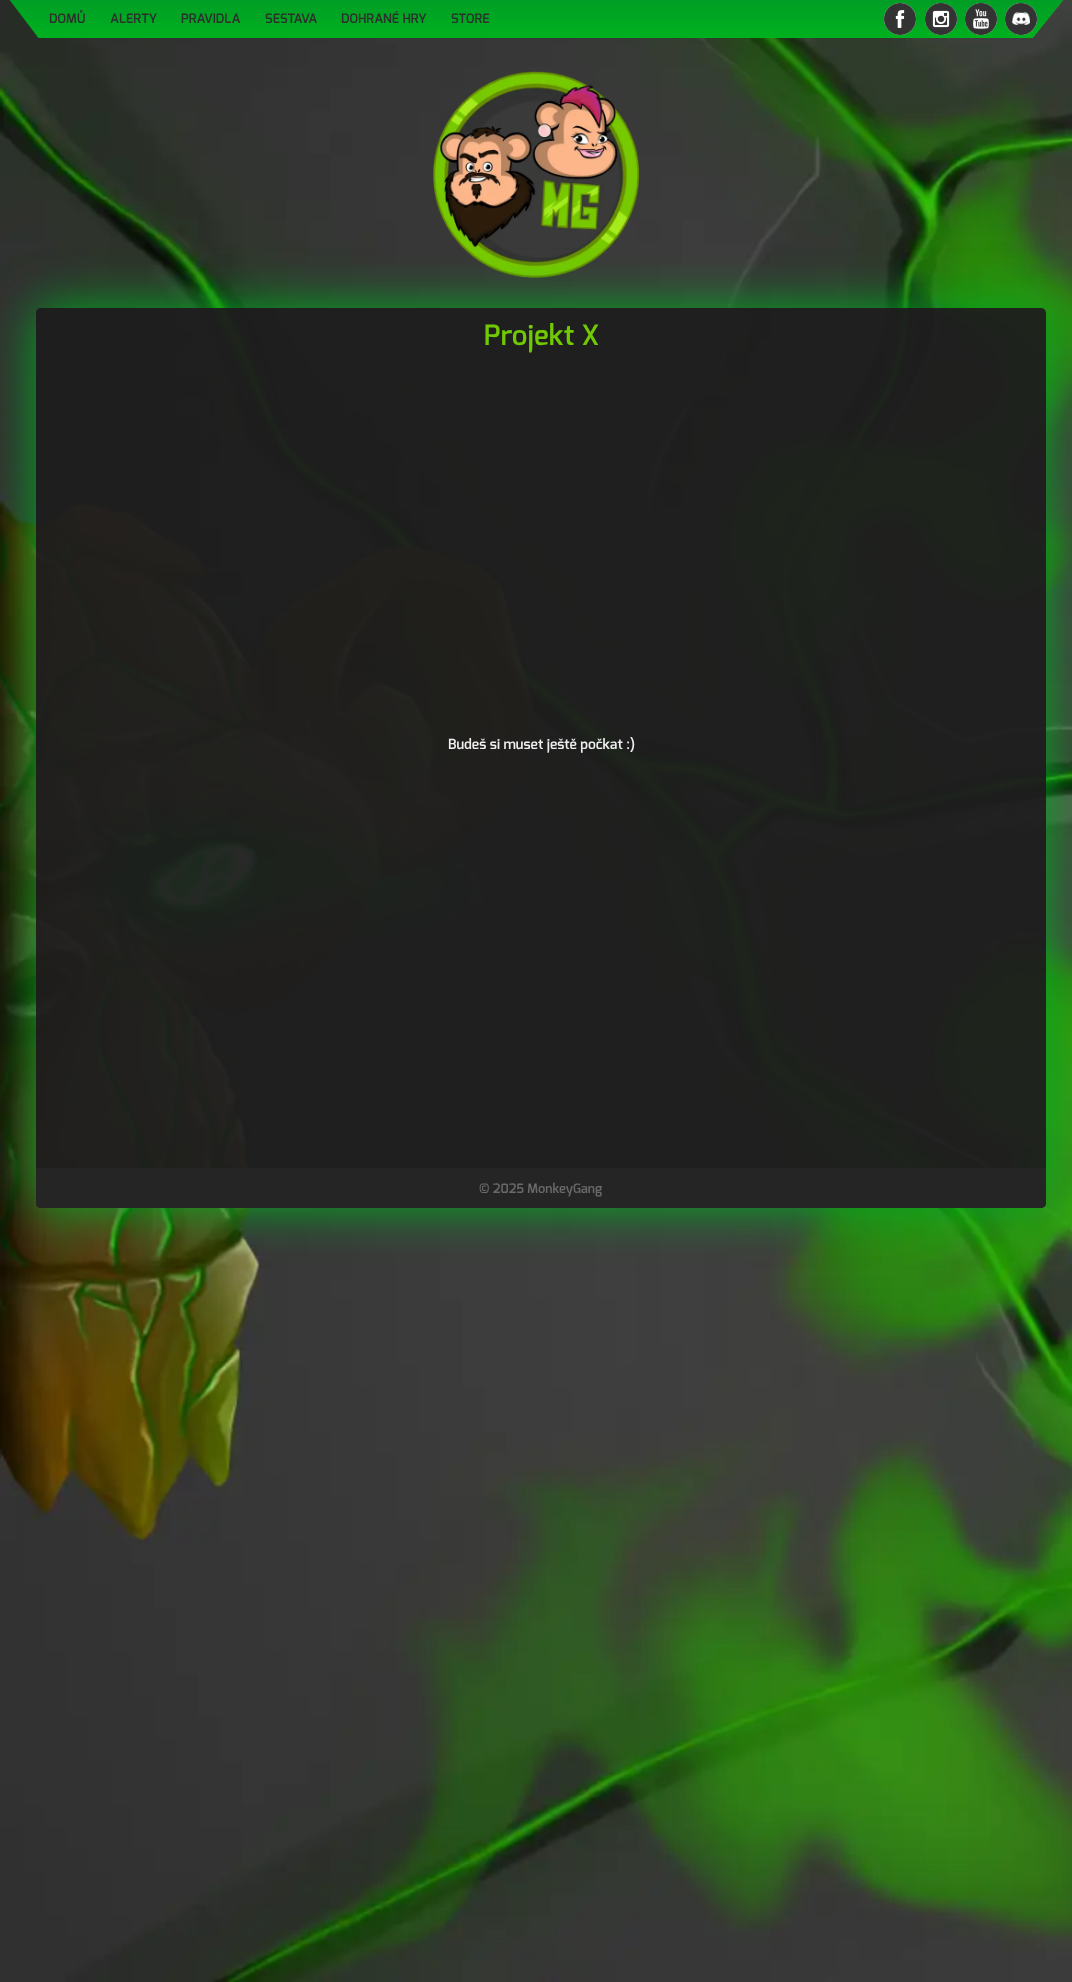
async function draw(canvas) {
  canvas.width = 1072;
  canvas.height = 1982;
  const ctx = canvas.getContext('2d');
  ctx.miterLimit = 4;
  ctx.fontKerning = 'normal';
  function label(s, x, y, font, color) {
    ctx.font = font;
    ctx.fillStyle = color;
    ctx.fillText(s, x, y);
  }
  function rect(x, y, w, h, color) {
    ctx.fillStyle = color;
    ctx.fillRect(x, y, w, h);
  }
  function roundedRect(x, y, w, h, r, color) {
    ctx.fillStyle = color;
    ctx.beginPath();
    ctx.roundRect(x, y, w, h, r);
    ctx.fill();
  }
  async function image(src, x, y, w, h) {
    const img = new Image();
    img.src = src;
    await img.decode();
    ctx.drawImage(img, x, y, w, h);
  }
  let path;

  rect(0, 0, 1072, 1982, '#fff');
  await image('assets/img1.png', 0, 0, 1072, 1982);
  await image('assets/img2.png', 9, 0, 1055, 38);
  label('DOMŮ', 49, 23, '600 13px Exo', '#2e2e2e');
  label('ALERTY', 110, 23, '600 13px Exo', '#2e2e2e');
  label('PRAVIDLA', 181, 23, '600 13px Exo', '#2e2e2e');
  label('SESTAVA', 265, 23, '600 13px Exo', '#2e2e2e');
  label('DOHRANÉ HRY', 341, 23, '600 13px Exo', '#2e2e2e');
  label('STORE', 451, 23, '600 13px Exo', '#2e2e2e');
  await image('assets/img3.png', 884, 3, 32, 32);
  await image('assets/img4.png', 884, 3, 32, 32);
  await image('assets/img5.png', 925, 3, 32, 32);
  await image('assets/img6.png', 925, 3, 32, 32);
  await image('assets/img7.png', 965, 3, 32, 32);
  await image('assets/img8.png', 965, 3, 32, 32);
  await image('assets/img9.png', 1005, 3, 32, 32);
  await image('assets/img10.png', 1005, 3, 32, 32);
  await image('assets/img11.png', 433, 71, 207, 207);
  ctx.save();
  path = new Path2D('M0 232H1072V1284H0ZM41 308H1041C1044 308 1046 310 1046 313V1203C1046 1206 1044 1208 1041 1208H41C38 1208 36 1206 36 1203V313C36 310 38 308 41 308Z');
  ctx.clip(path, 'evenodd');
  ctx.fillStyle = '#00ab21';
  ctx.filter = 'blur(25px)';
  ctx.beginPath();
  ctx.roundRect(36, 308, 1010, 900, 5);
  ctx.fill();
  ctx.filter = 'none';
  ctx.restore();
  roundedRect(36, 308, 1010, 900, 5, '#1e1e1ef2');
  label('Projekt X', 484, 345, '600 28px Exo', '#70c902');
  label('Budeš si muset ještě počkat :)', 448, 749, '600 14px Exo', '#eee');
  ctx.fillStyle = '#252525';
  ctx.beginPath();
  ctx.roundRect(36, 1168, 1010, 40, [0, 0, 5, 5]);
  ctx.fill();
  label('© 2025 MonkeyGang', 479, 1193, '600 13px Exo', '#696969');
}

draw(document.querySelector('canvas'));
